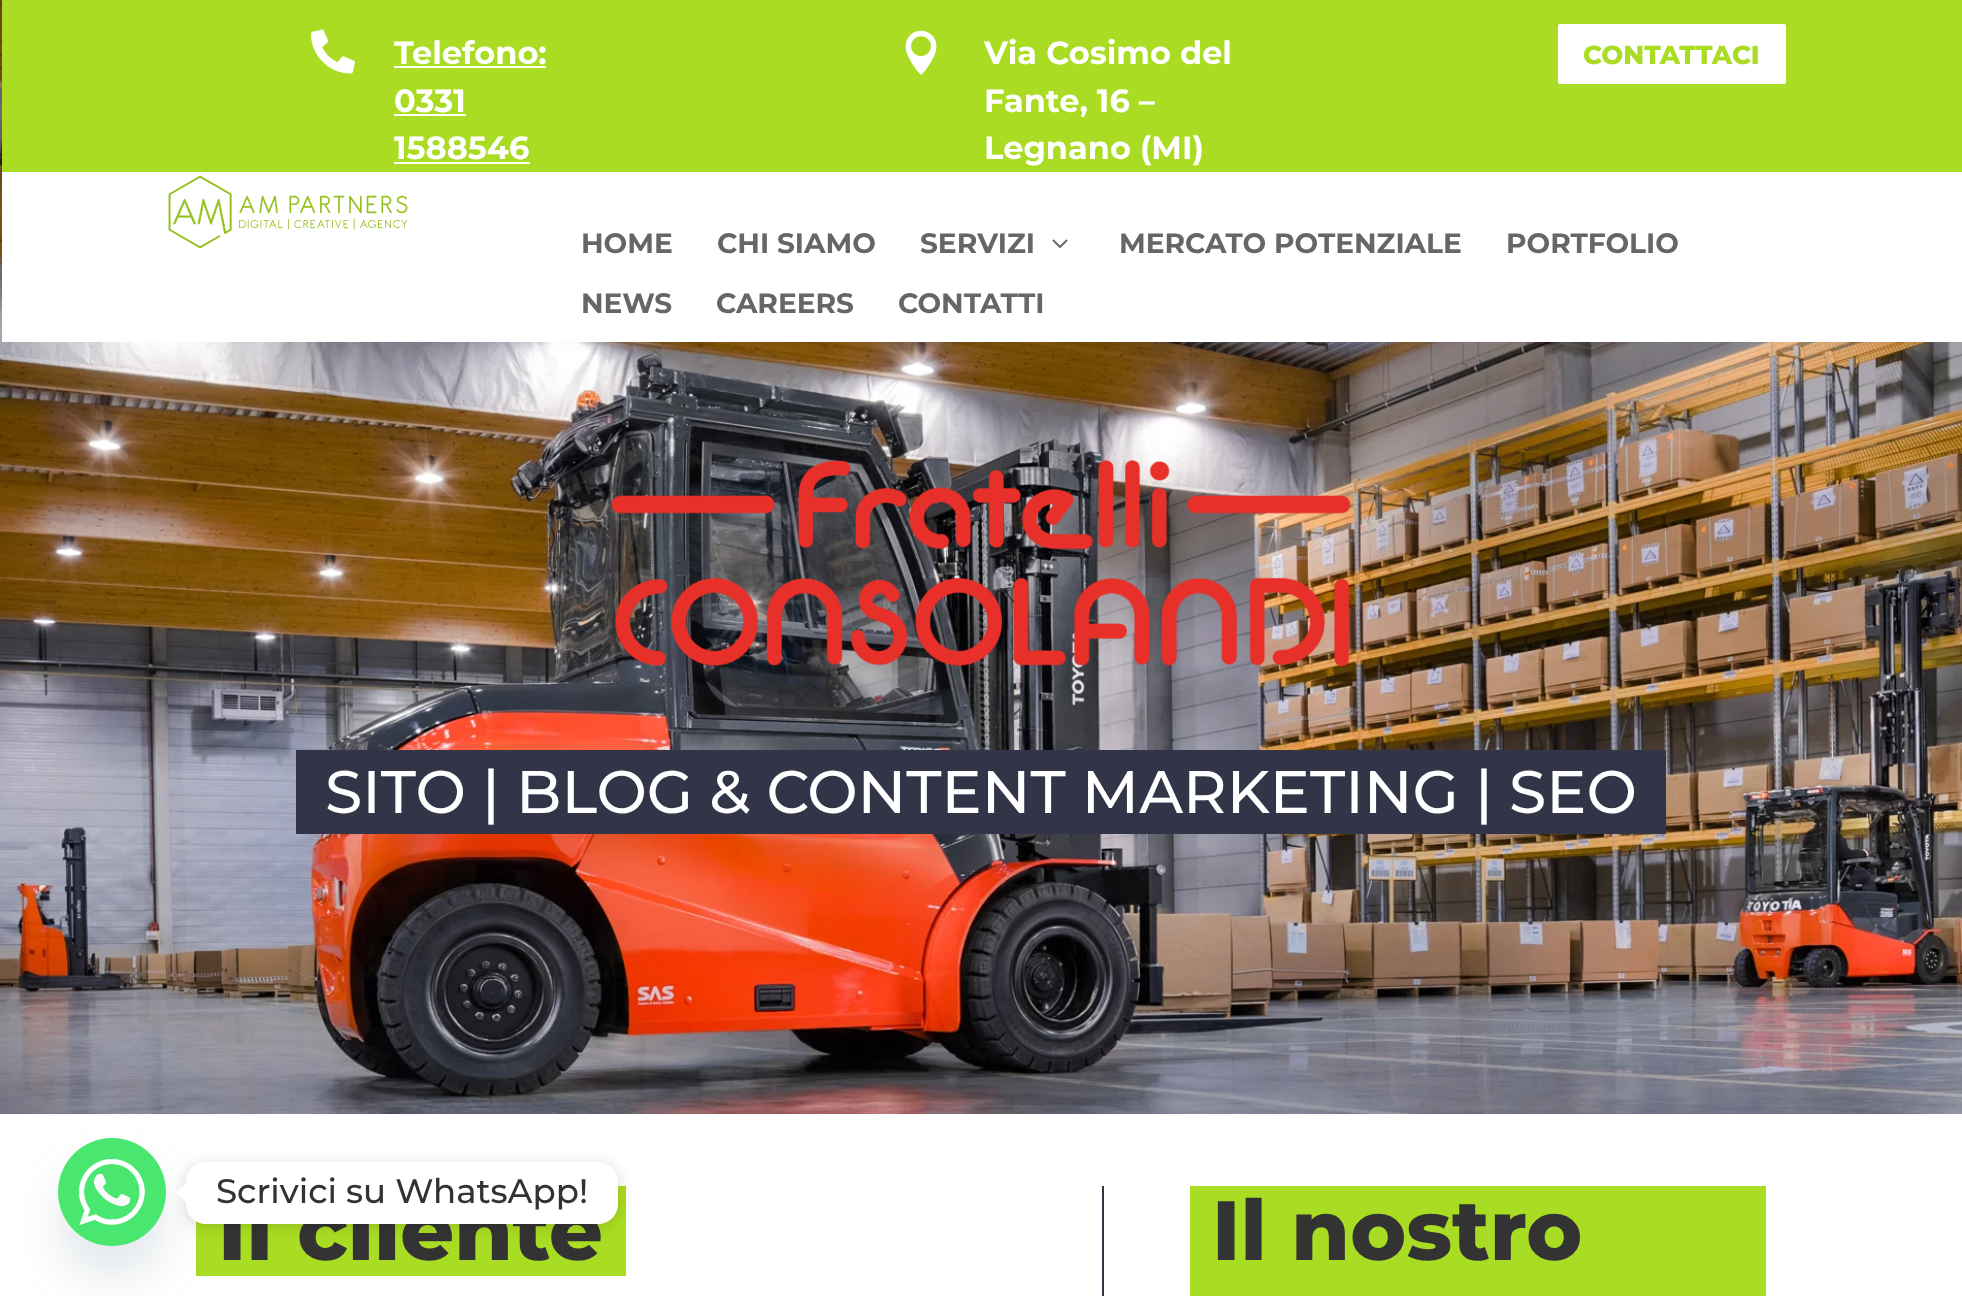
async function draw(canvas) {
  canvas.width = 1962;
  canvas.height = 1296;
  const ctx = canvas.getContext('2d');
  ctx.miterLimit = 4;
  ctx.fontKerning = 'normal';
  function label(s, x, y, font, color) {
    ctx.font = font;
    ctx.fillStyle = color;
    ctx.fillText(s, x, y);
  }
  function rect(x, y, w, h, color) {
    ctx.fillStyle = color;
    ctx.fillRect(x, y, w, h);
  }
  function roundedRect(x, y, w, h, r, color) {
    ctx.fillStyle = color;
    ctx.beginPath();
    ctx.roundRect(x, y, w, h, r);
    ctx.fill();
  }
  async function image(src, x, y, w, h) {
    const img = new Image();
    img.src = src;
    await img.decode();
    ctx.drawImage(img, x, y, w, h);
  }
  let path;

  rect(0, 0, 1962, 1296, '#fff');
  await image('assets/img5.png', 0, 0, 1962, 1114);
  rect(2, 172, 1960, 170, '#fff');
  rect(2, 0, 1960, 172, '#aadc23');
  await image('assets/img1.png', 311, 29, 44, 45);
  label('Telefono:', 394, 64, '100 32px "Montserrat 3"', '#fff');
  rect(394, 66, 152, 2, '#fff');
  label('0331', 394, 112, '100 32px "Montserrat 3"', '#fff');
  rect(394, 114, 72, 2, '#fff');
  label('1588546', 394, 159, '100 32px "Montserrat 3"', '#fff');
  rect(394, 162, 136, 2, '#fff');
  await image('assets/img2.png', 905, 30, 32, 45);
  label('Via Cosimo del', 984, 64, '100 32px "Montserrat 3"', '#fff');
  label('Fante, 16 –', 984, 112, '100 32px "Montserrat 3"', '#fff');
  label('Legnano (MI)', 984, 159, '100 32px "Montserrat 3"', '#fff');
  ctx.beginPath();
  ctx.roundRect(1556, 22, 232, 64, 4);
  ctx.fill();
  ctx.strokeStyle = '#aadc23';
  ctx.lineWidth = 4;
  ctx.stroke();
  label('CONTATTACI', 1583, 64, '100 26px "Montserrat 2"', '#aadc23');
  await image('assets/img3.png', 168, 175, 240, 74);
  label('HOME', 581, 253, '100 28px "Montserrat 3"', '#666');
  label('CHI SIAMO', 717, 253, '100 28px "Montserrat 3"', '#666');
  label('SERVIZI', 920, 253, '100 28px "Montserrat 3"', '#666');
  await image('assets/img4.png', 1052, 239, 16, 9);
  label('MERCATO POTENZIALE', 1119, 253, '100 28px "Montserrat 3"', '#666');
  label('PORTFOLIO', 1506, 253, '100 28px "Montserrat 3"', '#666');
  label('NEWS', 581, 313, '100 28px "Montserrat 3"', '#666');
  label('CAREERS', 716, 313, '100 28px "Montserrat 3"', '#666');
  label('CONTATTI', 898, 313, '100 28px "Montserrat 3"', '#666');
  await image('assets/img6.png', 612, 460, 738, 206);
  rect(296, 750, 1370, 84, '#313547');
  label('SITO | BLOG & CONTENT MARKETING | SEO', 325, 813, '100 60px Montserrat', '#fff');
  rect(1102, 1186, 2, 110, '#313547');
  rect(196, 1186, 430, 90, '#a9dd23');
  label('Il cliente', 218, 1260, '100 84px "Montserrat 2"', '#333');
  rect(1190, 1186, 576, 110, '#a9dd23');
  label('Il nostro', 1212, 1260, '100 84px "Montserrat 2"', '#333');
  ctx.fillStyle = '#49687e29';
  ctx.filter = 'blur(24px)';
  ctx.beginPath();
  ctx.roundRect(58, 1170, 108, 108, 54);
  ctx.fill();
  ctx.filter = 'none';
  await image('assets/img7.png', 58, 1138, 108, 108);
  ctx.fillStyle = '#00000026';
  ctx.filter = 'blur(7.5px)';
  ctx.beginPath();
  ctx.roundRect(186, 1164, 432, 62, 20);
  ctx.fill();
  ctx.filter = 'none';
  roundedRect(186, 1162, 432, 62, 20, '#fff');
  path = new Path2D('M186 1183V1203L176 1193Z');
  ctx.fill(path);
  label('Scrivici su WhatsApp!', 216, 1203, '100 34px Montserrat', '#333');
}

draw(document.querySelector('canvas'));
